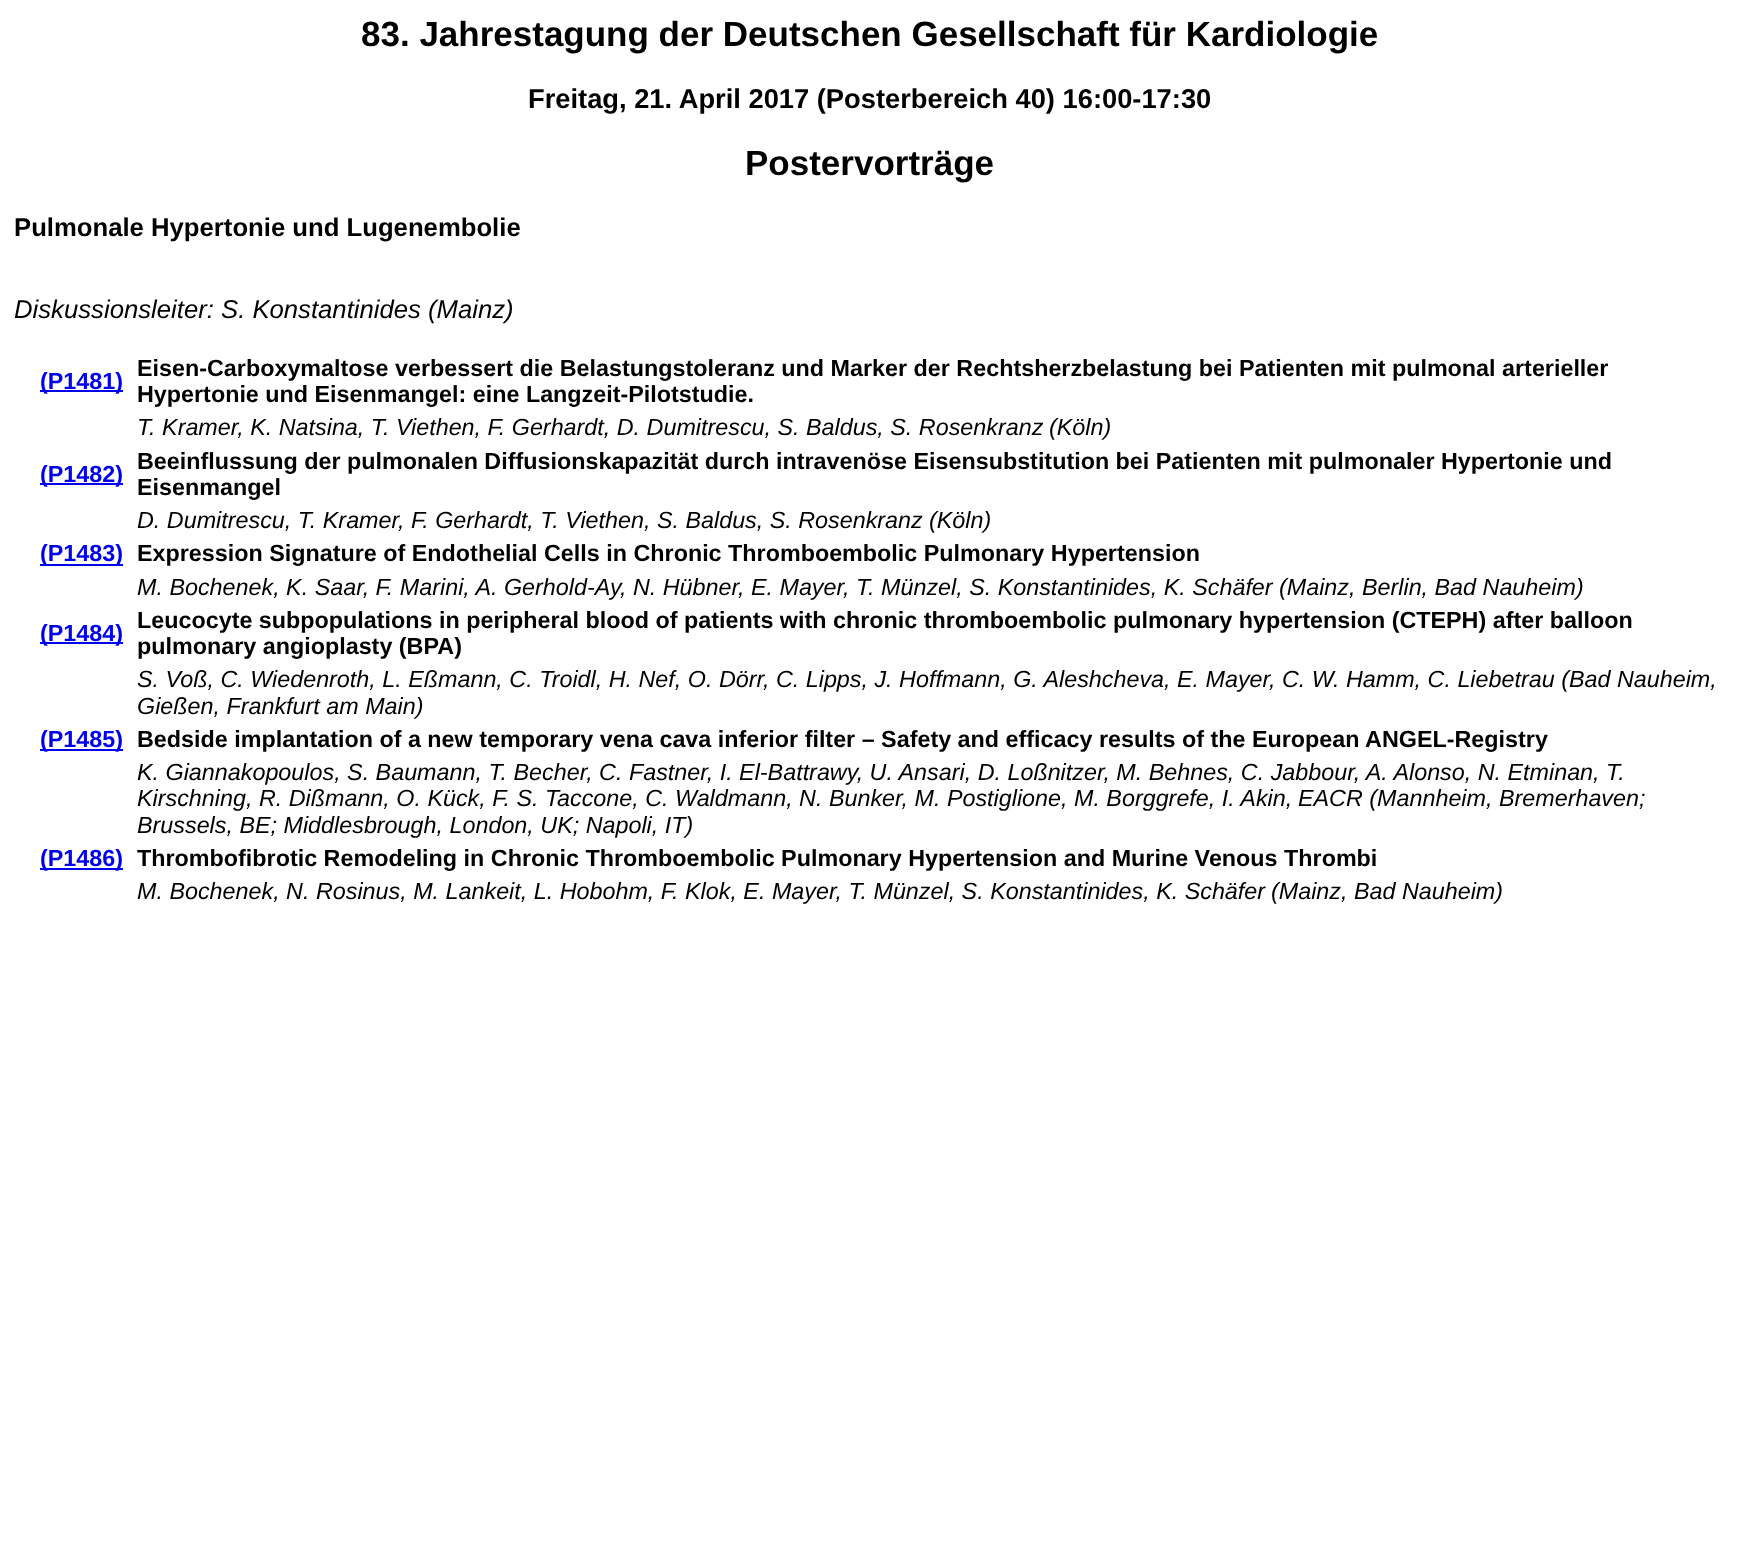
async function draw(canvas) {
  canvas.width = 1739;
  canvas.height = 1554;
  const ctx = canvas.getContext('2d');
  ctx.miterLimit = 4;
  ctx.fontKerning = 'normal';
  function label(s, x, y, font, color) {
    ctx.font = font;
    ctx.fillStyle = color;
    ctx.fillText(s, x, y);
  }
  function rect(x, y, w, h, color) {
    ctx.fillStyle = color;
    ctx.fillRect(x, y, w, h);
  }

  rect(0, 0, 1739, 1554, '#fff');
  label('83. Jahrestagung der Deutschen Gesellschaft für Kardiologie', 361, 46, 'bold 35px Liberation Sans', '#000');
  label('Freitag, 21. April 2017 (Posterbereich 40) 16:00-17:30', 528, 108, 'bold 27.3px Liberation Sans', '#000');
  label('Postervorträge', 745, 175, 'bold 35px Liberation Sans', '#000');
  label('Pulmonale Hypertonie und Lugenembolie', 14, 236, 'bold 25.7px Liberation Sans', '#000');
  label('Diskussionsleiter: S. Konstantinides (Mainz)', 14, 318, 'italic 25.7px Liberation Sans', '#000');
  rect(40, 390, 83, 2, '#00e');
  label('(P1481)', 40, 389, 'bold 23.33px Liberation Sans', '#00e');
  label('Eisen-Carboxymaltose verbessert die Belastungstoleranz und Marker der Rechtsherzbelastung bei Patienten mit pulmonal arterieller', 137, 376, 'bold 23.33px Liberation Sans', '#000');
  label('Hypertonie und Eisenmangel: eine Langzeit-Pilotstudie.', 137, 402, 'bold 23.33px Liberation Sans', '#000');
  label('T. Kramer, K. Natsina, T. Viethen, F. Gerhardt, D. Dumitrescu, S. Baldus, S. Rosenkranz', 137, 435, 'italic 23.33px Liberation Sans', '#000');
  label('(Köln)', 1049, 435, 'italic 23.33px Liberation Sans', '#000');
  rect(40, 483, 83, 2, '#00e');
  label('(P1482)', 40, 482, 'bold 23.33px Liberation Sans', '#00e');
  label('Beeinflussung der pulmonalen Diffusionskapazität durch intravenöse Eisensubstitution bei Patienten mit pulmonaler Hypertonie und', 137, 469, 'bold 23.33px Liberation Sans', '#000');
  label('Eisenmangel', 137, 495, 'bold 23.33px Liberation Sans', '#000');
  label('D. Dumitrescu, T. Kramer, F. Gerhardt, T. Viethen, S. Baldus, S. Rosenkranz', 137, 528, 'italic 23.33px Liberation Sans', '#000');
  label('(Köln)', 929, 528, 'italic 23.33px Liberation Sans', '#000');
  rect(40, 564, 83, 2, '#00e');
  label('(P1483)', 40, 561, 'bold 23.33px Liberation Sans', '#00e');
  label('Expression Signature of Endothelial Cells in Chronic Thromboembolic Pulmonary Hypertension', 137, 561, 'bold 23.33px Liberation Sans', '#000');
  label('M. Bochenek, K. Saar, F. Marini, A. Gerhold-Ay, N. Hübner, E. Mayer, T. Münzel, S. Konstantinides, K. Schäfer', 137, 595, 'italic 23.33px Liberation Sans', '#000');
  label('(Mainz, Berlin, Bad Nauheim)', 1279, 595, 'italic 23.33px Liberation Sans', '#000');
  rect(40, 642, 83, 2, '#00e');
  label('(P1484)', 40, 641, 'bold 23.33px Liberation Sans', '#00e');
  label('Leucocyte subpopulations in peripheral blood of patients with chronic thromboembolic pulmonary hypertension (CTEPH) after balloon', 137, 628, 'bold 23.33px Liberation Sans', '#000');
  label('pulmonary angioplasty (BPA)', 137, 654, 'bold 23.33px Liberation Sans', '#000');
  label('S. Voß, C. Wiedenroth, L. Eßmann, C. Troidl, H. Nef, O. Dörr, C. Lipps, J. Hoffmann, G. Aleshcheva, E. Mayer, C. W. Hamm, C. Liebetrau (Bad Nauheim,', 137, 687, 'italic 23.33px Liberation Sans', '#000');
  label('Gießen, Frankfurt am Main)', 137, 714, 'italic 23.33px Liberation Sans', '#000');
  rect(40, 749, 83, 2, '#00e');
  label('(P1485)', 40, 747, 'bold 23.33px Liberation Sans', '#00e');
  label('Bedside implantation of a new temporary vena cava inferior filter – Safety and efficacy results of the European ANGEL-Registry', 137, 747, 'bold 23.33px Liberation Sans', '#000');
  label('K. Giannakopoulos, S. Baumann, T. Becher, C. Fastner, I. El-Battrawy, U. Ansari, D. Loßnitzer, M. Behnes, C. Jabbour, A. Alonso, N. Etminan, T.', 137, 780, 'italic 23.33px Liberation Sans', '#000');
  label('Kirschning, R. Dißmann, O. Kück, F. S. Taccone, C. Waldmann, N. Bunker, M. Postiglione, M. Borggrefe, I. Akin,', 137, 806, 'italic 23.33px Liberation Sans', '#000');
  label('EACR (Mannheim, Bremerhaven;', 1298, 806, 'italic 23.33px Liberation Sans', '#000');
  label('Brussels, BE; Middlesbrough, London, UK; Napoli, IT)', 137, 833, 'italic 23.33px Liberation Sans', '#000');
  rect(40, 868, 83, 2, '#00e');
  label('(P1486)', 40, 866, 'bold 23.33px Liberation Sans', '#00e');
  label('Thrombofibrotic Remodeling in Chronic Thromboembolic Pulmonary Hypertension and Murine Venous Thrombi', 137, 866, 'bold 23.33px Liberation Sans', '#000');
  label('M. Bochenek, N. Rosinus, M. Lankeit, L. Hobohm, F. Klok, E. Mayer, T. Münzel, S. Konstantinides, K. Schäfer', 137, 899, 'italic 23.33px Liberation Sans', '#000');
  label('(Mainz, Bad Nauheim)', 1271, 899, 'italic 23.33px Liberation Sans', '#000');
}

draw(document.querySelector('canvas'));
